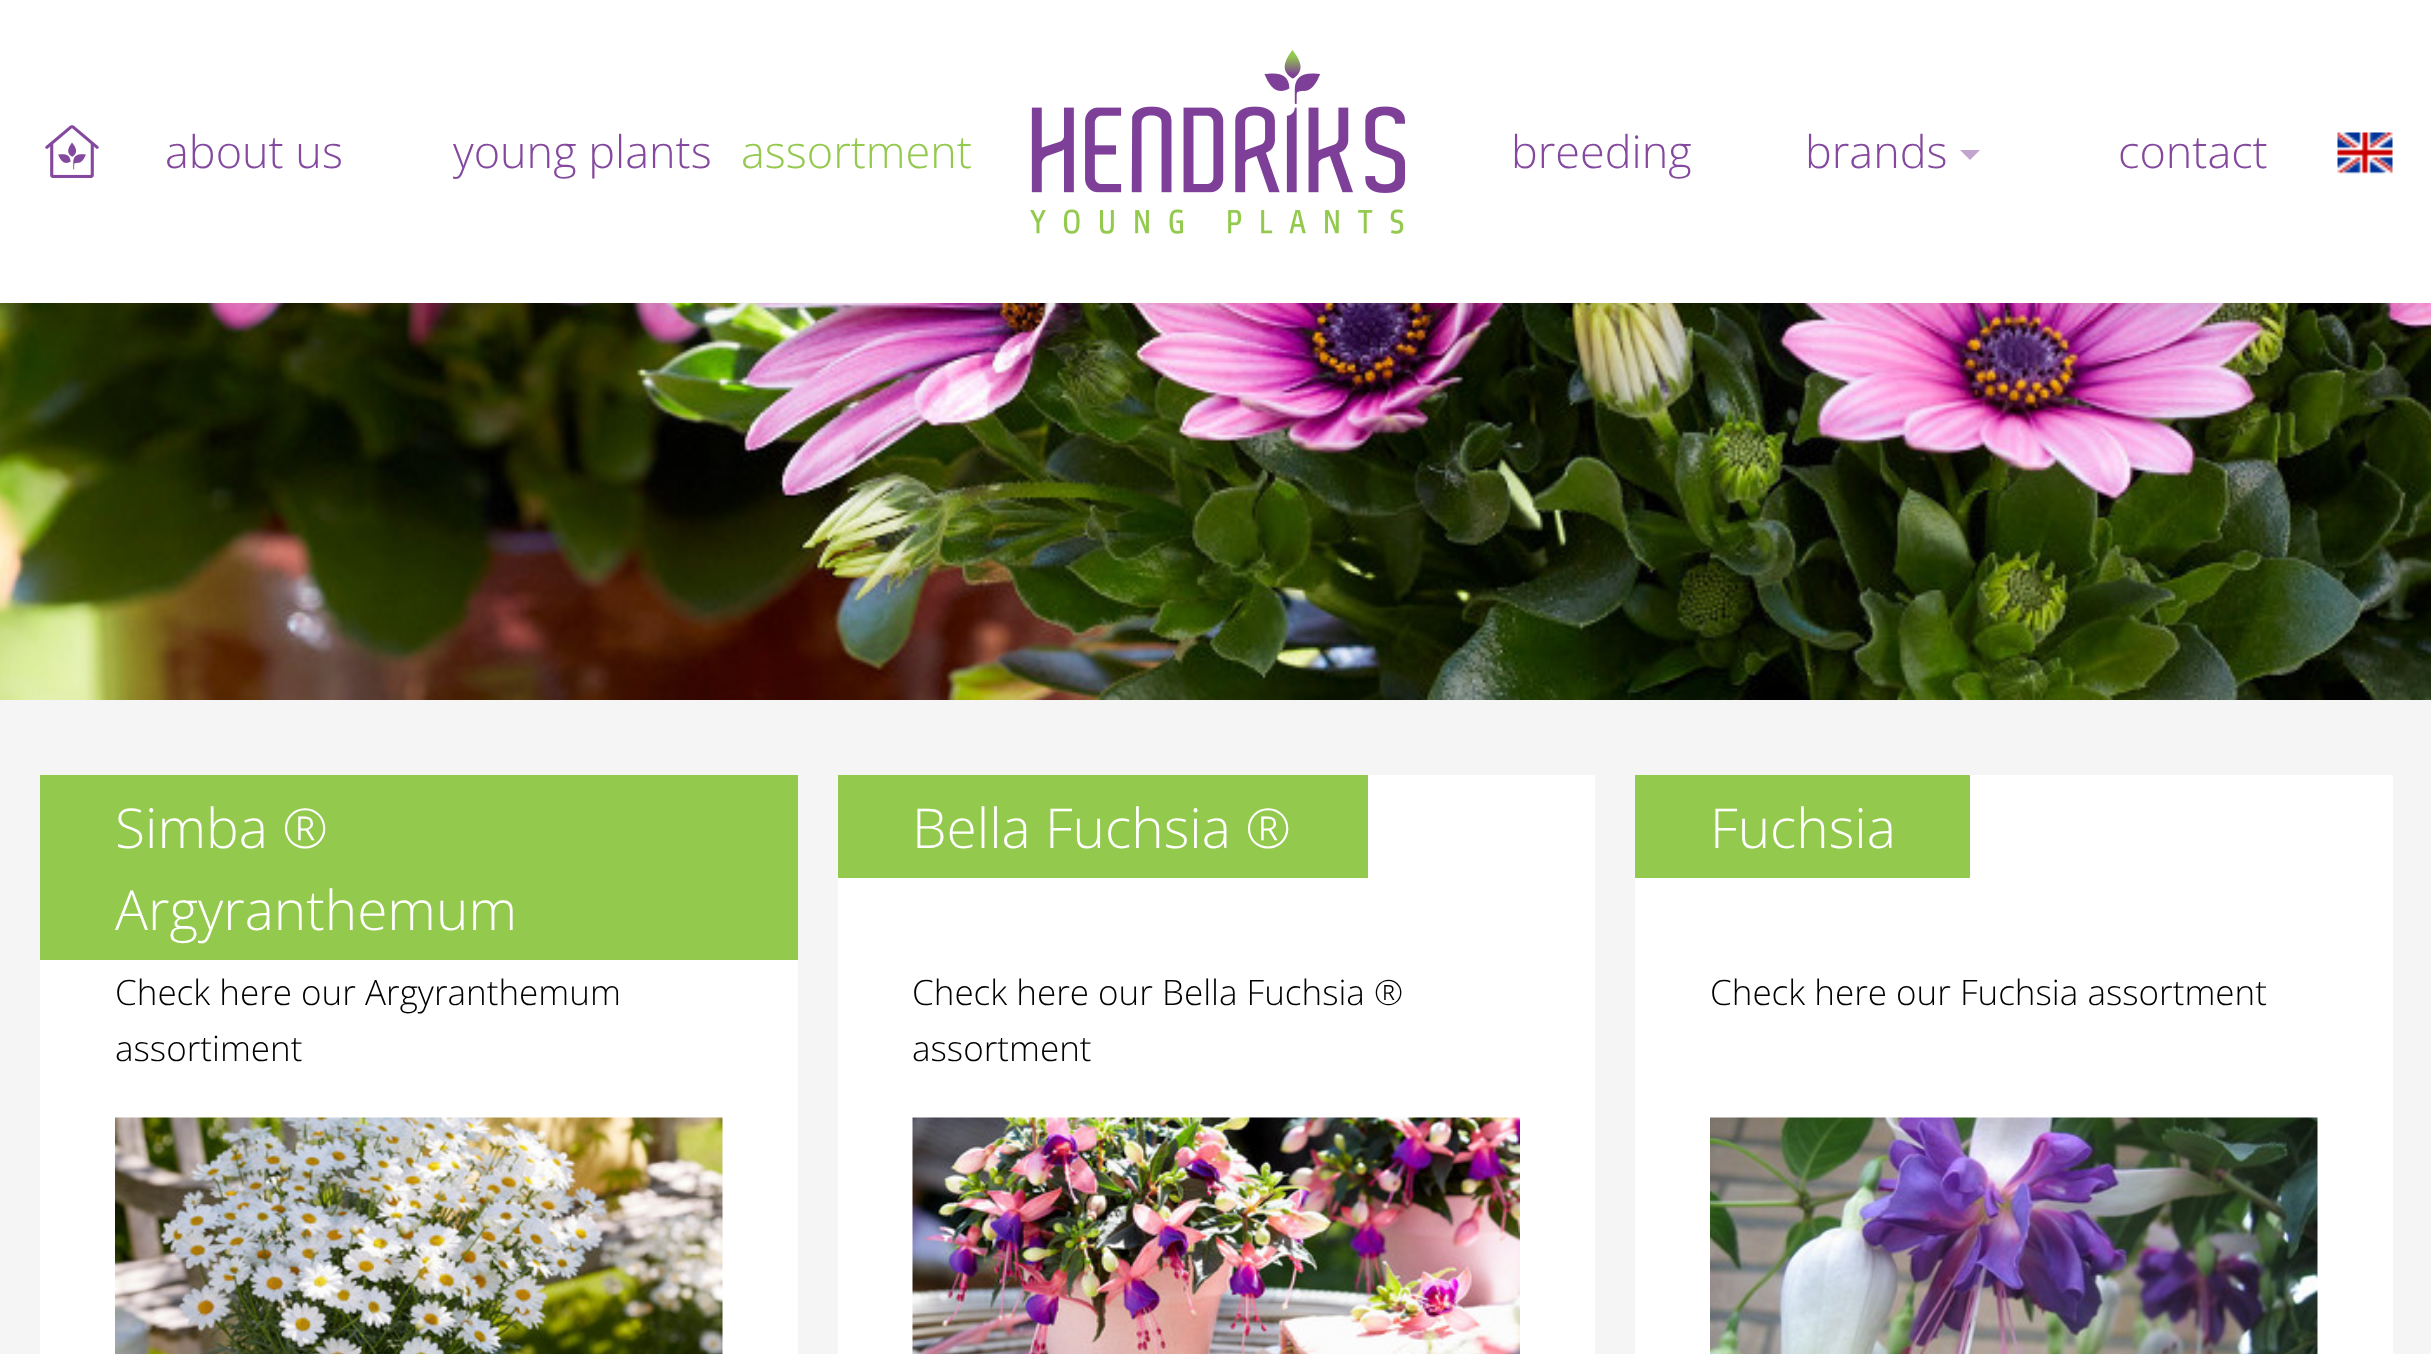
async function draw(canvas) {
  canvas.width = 2431;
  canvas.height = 1354;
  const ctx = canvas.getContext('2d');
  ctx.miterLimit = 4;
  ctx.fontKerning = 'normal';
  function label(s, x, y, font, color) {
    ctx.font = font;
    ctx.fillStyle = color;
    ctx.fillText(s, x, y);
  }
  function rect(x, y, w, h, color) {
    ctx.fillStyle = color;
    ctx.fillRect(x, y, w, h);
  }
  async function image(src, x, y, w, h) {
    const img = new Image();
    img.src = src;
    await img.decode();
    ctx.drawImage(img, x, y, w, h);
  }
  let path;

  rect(0, 0, 2431, 1354, '#f5f5f5');
  await image('assets/img4.png', 0, 303, 2431, 397);
  ctx.fillStyle = '#0000001a';
  ctx.filter = 'blur(12.5px)';
  ctx.beginPath();
  ctx.rect(0, 0, 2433, 303);
  ctx.fill();
  ctx.filter = 'none';
  rect(0, 0, 2431, 303, '#fff');
  await image('assets/img1.png', 1030, 50, 375, 184);
  await image('assets/img2.png', 45, 125, 54, 53);
  label('about us', 165, 168, '300 45px Open Sans', '#84499e');
  label('young plants', 453, 168, '300 45px Open Sans', '#84499e');
  label('assortment', 741, 168, '300 45px Open Sans', '#93c94d');
  label('breeding', 1511, 168, '300 45px Open Sans', '#84499e');
  label('brands', 1805, 168, '300 45px Open Sans', '#84499e');
  ctx.fillStyle = '#c2a4cf';
  path = new Path2D('M1960 150H1980L1970 160Z');
  ctx.fill(path);
  label('contact', 2118, 168, '300 45px Open Sans', '#84499e');
  await image('assets/img3.png', 2337, 132, 56, 42);
  rect(40, 960, 758, 394, '#fff');
  rect(40, 775, 758, 185, '#93c94d');
  label('Simba ®', 115, 848, '300 55px Open Sans', '#fff');
  label('Argyranthemum', 115, 930, '300 55px Open Sans', '#fff');
  label('Check here our Argyranthemum', 115, 1005, '300 35px Open Sans', '#000');
  label('assortiment', 115, 1061, '300 35px Open Sans', '#000');
  await image('assets/img5.png', 115, 1117, 608, 237);
  rect(838, 775, 757, 579, '#fff');
  rect(838, 775, 530, 103, '#93c94d');
  label('Bella Fuchsia ®', 912, 848, '300 55px Open Sans', '#fff');
  label('Check here our Bella Fuchsia ®', 912, 1005, '300 35px Open Sans', '#000');
  label('assortment', 912, 1061, '300 35px Open Sans', '#000');
  await image('assets/img6.png', 912, 1117, 608, 237);
  rect(1635, 775, 758, 579, '#fff');
  rect(1635, 775, 335, 103, '#93c94d');
  label('Fuchsia', 1710, 848, '300 55px Open Sans', '#fff');
  label('Check here our Fuchsia assortment', 1710, 1005, '300 35px Open Sans', '#000');
  await image('assets/img7.png', 1710, 1117, 608, 237);
}

draw(document.querySelector('canvas'));
